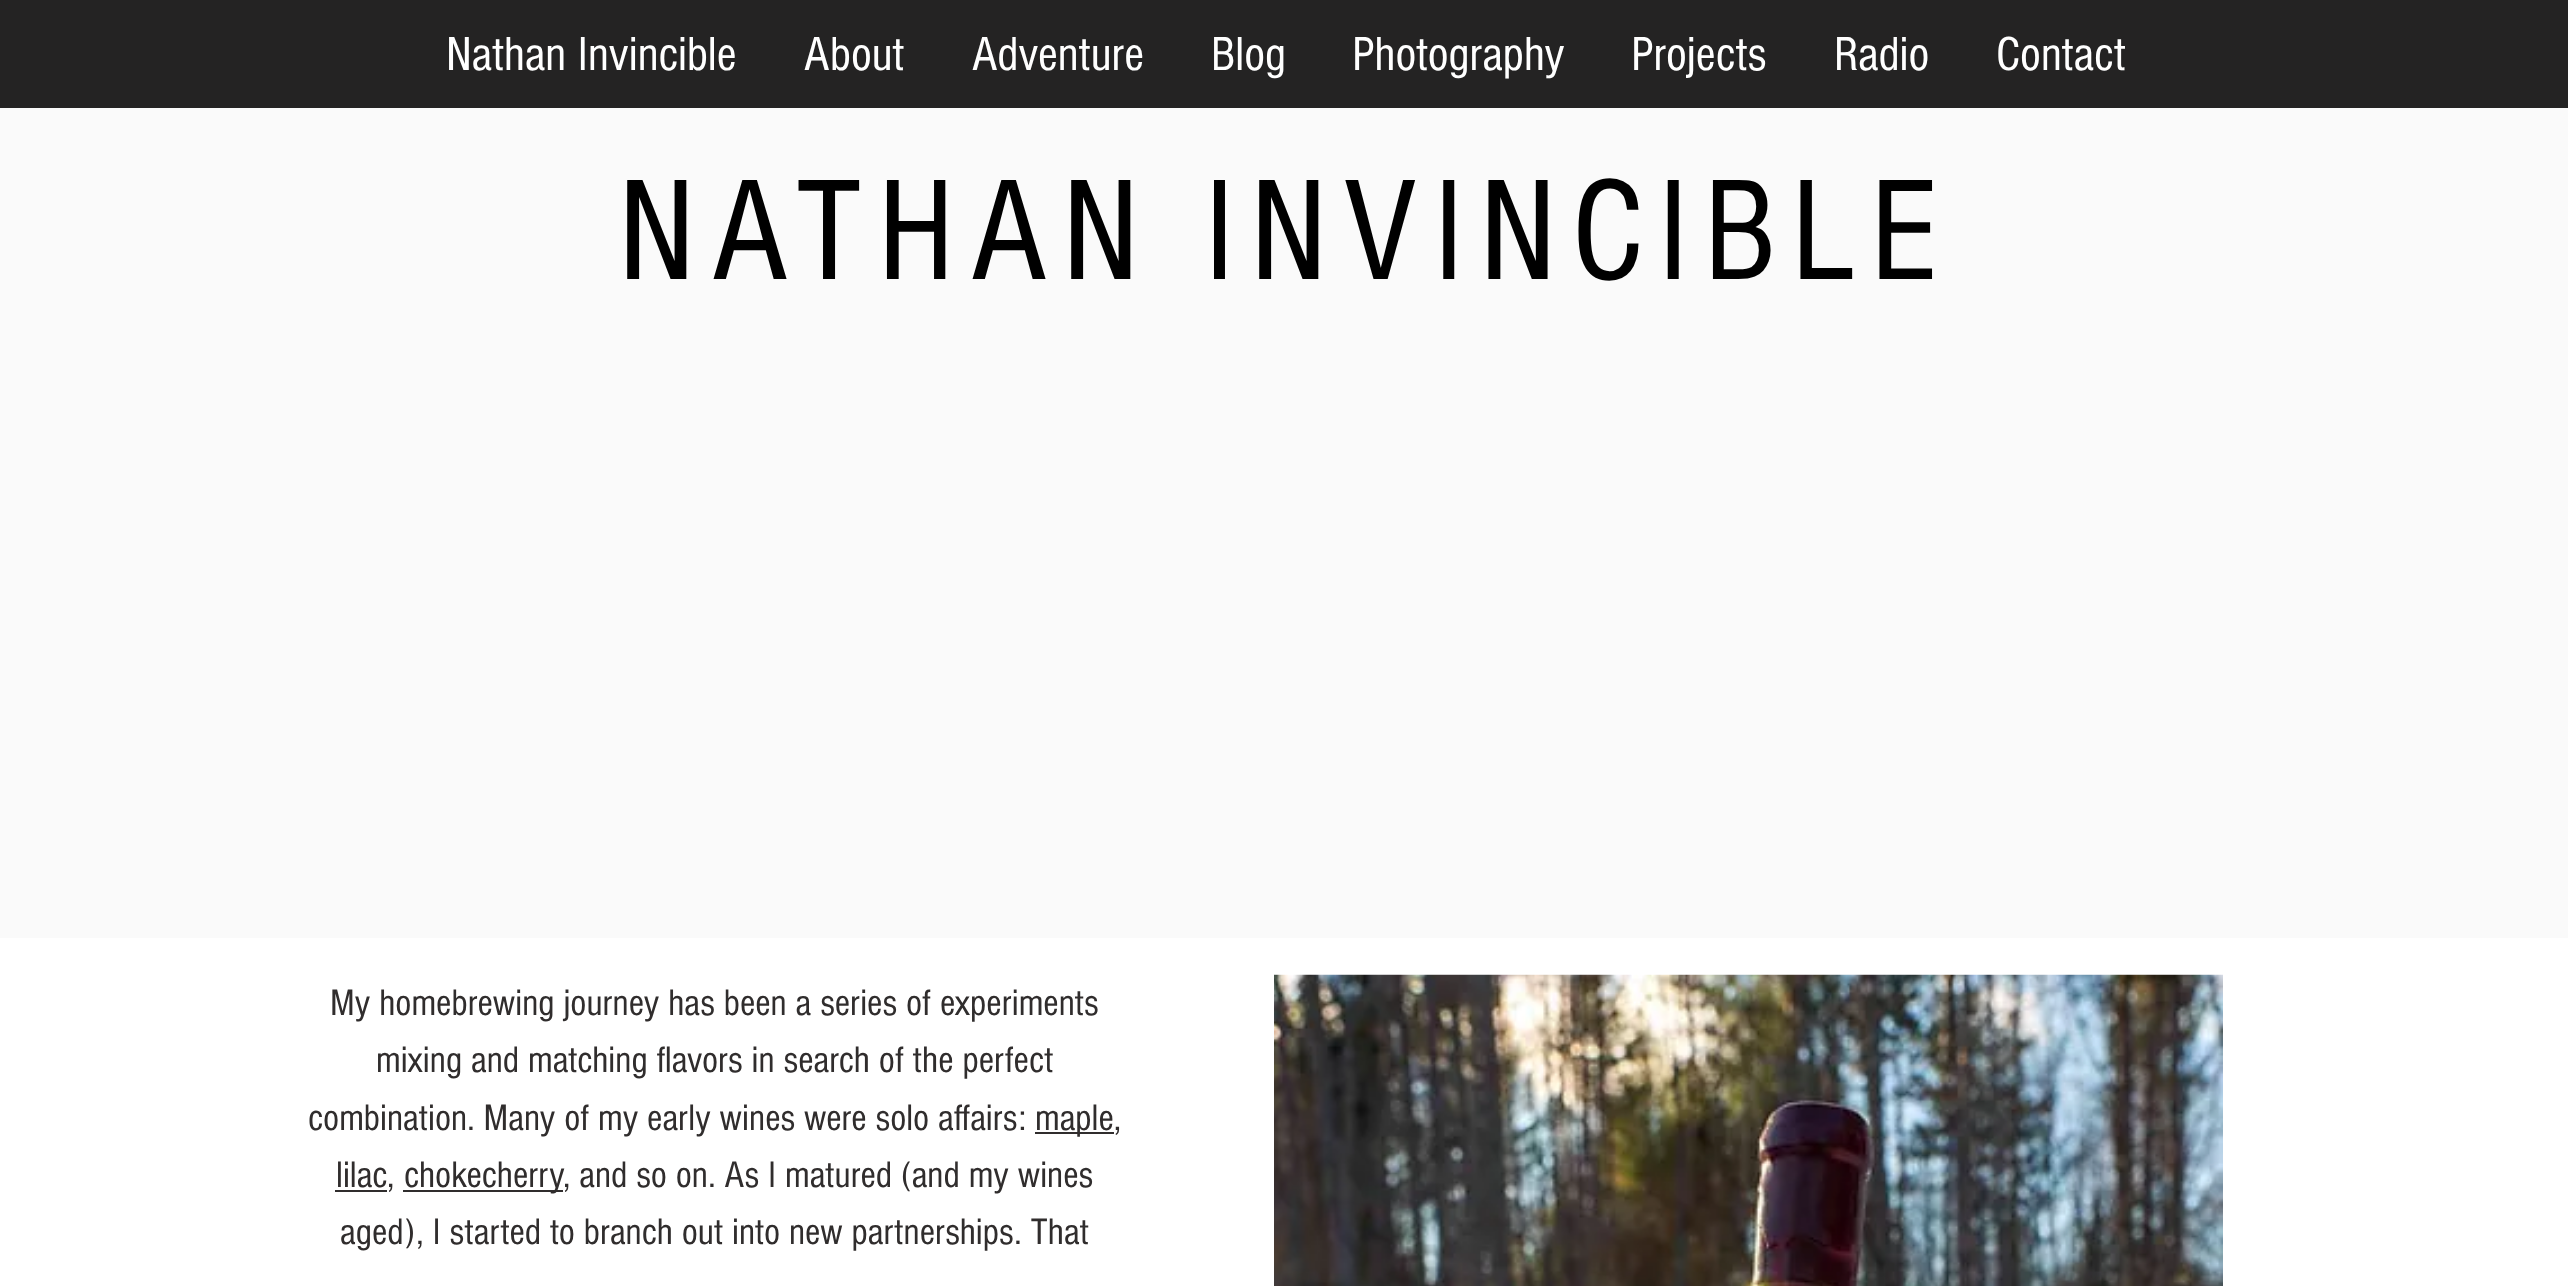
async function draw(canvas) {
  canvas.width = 2568;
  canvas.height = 1286;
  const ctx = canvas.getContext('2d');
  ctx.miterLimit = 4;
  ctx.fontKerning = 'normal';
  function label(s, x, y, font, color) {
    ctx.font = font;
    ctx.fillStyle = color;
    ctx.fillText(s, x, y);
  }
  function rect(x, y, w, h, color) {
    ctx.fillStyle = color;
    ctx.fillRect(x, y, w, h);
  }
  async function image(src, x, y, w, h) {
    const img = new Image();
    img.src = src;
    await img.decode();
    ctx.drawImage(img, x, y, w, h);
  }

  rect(0, 0, 2568, 1286, '#fff');
  rect(0, 0, 2568, 108, '#242323');
  label('Nathan Invincible', 446, 70, '49.5px "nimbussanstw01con"', '#fff');
  label('About', 804, 70, '49.5px "nimbussanstw01con"', '#fff');
  label('Adventure', 972, 70, '49.5px "nimbussanstw01con"', '#fff');
  label('Blog', 1211, 70, '49.5px "nimbussanstw01con"', '#fff');
  label('Photography', 1352, 70, '49.5px "nimbussanstw01con"', '#fff');
  label('Projects', 1631, 70, '49.5px "nimbussanstw01con"', '#fff');
  label('Radio', 1834, 70, '49.5px "nimbussanstw01con"', '#fff');
  label('Contact', 1996, 70, '49.5px "nimbussanstw01con"', '#fff');
  rect(0, 108, 2568, 830, '#fafafa');
  ctx.letterSpacing = '14.8px';
  label('NATHAN INVINCIBLE', 618, 279, '148.5px "nimbussanstw01con"', '#000');
  ctx.letterSpacing = '0px';
  label('My homebrewing journey has been a series of experiments', 330, 1015, '38.25px "nimbussanstw01con"', '#302d2d');
  label('mixing and matching flavors in search of the perfect', 376, 1072, '38.25px "nimbussanstw01con"', '#302d2d');
  label('combination. Many of my early wines were solo affairs:', 308, 1130, '38.25px "nimbussanstw01con"', '#302d2d');
  rect(1035, 1132, 79, 2, '#302d2d');
  label('maple,', 1035, 1130, '38.25px "nimbussanstw01con"', '#302d2d');
  label('lilac', 336, 1187, '38.25px "nimbussanstw01con"', '#302d2d');
  label(',', 387, 1187, '38.25px "nimbussanstw01con"', '#302d2d');
  rect(335, 1190, 52, 2, '#302d2d');
  rect(403, 1190, 160, 2, '#302d2d');
  label('chokecherry', 404, 1187, '38.25px "nimbussanstw01con"', '#302d2d');
  label(', and so on. As I matured (and my wines', 563, 1187, '38.25px "nimbussanstw01con"', '#302d2d');
  label('aged), I started to branch out into new partnerships. That', 340, 1244, '38.25px "nimbussanstw01con"', '#302d2d');
  await image('assets/img1.png', 1274, 974, 949, 312);
}

draw(document.querySelector('canvas'));
